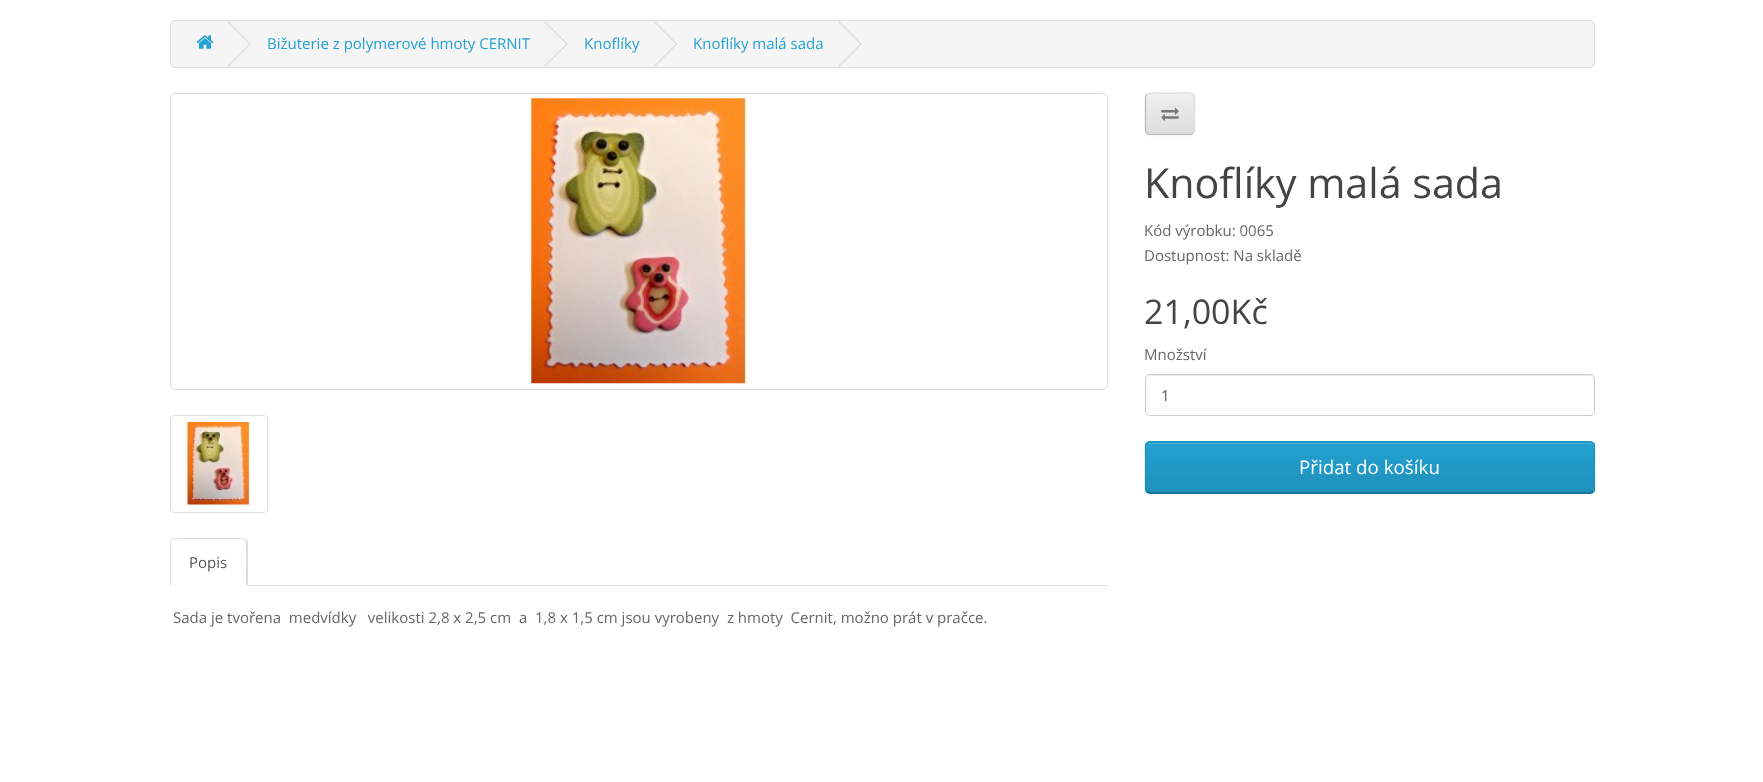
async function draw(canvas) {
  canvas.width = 1763;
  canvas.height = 782;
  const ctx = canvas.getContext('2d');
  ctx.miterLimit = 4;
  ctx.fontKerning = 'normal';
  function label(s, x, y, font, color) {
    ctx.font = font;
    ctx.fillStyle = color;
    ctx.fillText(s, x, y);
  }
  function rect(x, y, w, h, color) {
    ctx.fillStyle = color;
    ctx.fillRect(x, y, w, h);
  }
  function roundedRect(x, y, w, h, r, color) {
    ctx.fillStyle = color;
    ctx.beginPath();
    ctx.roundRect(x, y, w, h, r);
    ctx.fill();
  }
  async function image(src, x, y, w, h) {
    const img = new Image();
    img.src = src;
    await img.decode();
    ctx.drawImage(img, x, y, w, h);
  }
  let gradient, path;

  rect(0, 0, 1763, 782, '#fff');
  ctx.fillStyle = '#f5f5f5';
  ctx.beginPath();
  ctx.roundRect(170.5, 20.5, 1424, 47, 4.5);
  ctx.fill();
  ctx.strokeStyle = '#ddd';
  ctx.stroke();
  await image('assets/img1.png', 196, 35, 18, 14);
  ctx.fillStyle = '#ddd';
  path = new Path2D('M227 22L228 21L251 44L250 45Z');
  ctx.fill(path);
  path = new Path2D('M227 66L250 43L251 44L228 67Z');
  ctx.fill(path);
  label('Bižuterie z polymerové hmoty CERNIT', 267, 49, '15px Open Sans', '#23a1d1');
  ctx.fillStyle = '#ddd';
  path = new Path2D('M544 22L545 21L568 44L567 45Z');
  ctx.fill(path);
  path = new Path2D('M544 66L567 43L568 44L545 67Z');
  ctx.fill(path);
  label('Knoflíky', 584, 49, '15px Open Sans', '#23a1d1');
  ctx.fillStyle = '#ddd';
  path = new Path2D('M653.5 22L654.5 21L677.5 44L676.5 45Z');
  ctx.fill(path);
  path = new Path2D('M653.5 66L676.5 43L677.5 44L654.5 67Z');
  ctx.fill(path);
  label('Knoflíky malá sada', 693, 49, '15px Open Sans', '#23a1d1');
  ctx.fillStyle = '#ddd';
  path = new Path2D('M838 22L839 21L862 44L861 45Z');
  ctx.fill(path);
  path = new Path2D('M838 66L861 43L862 44L839 67Z');
  ctx.fill(path);
  ctx.fillStyle = '#0000000d';
  ctx.filter = 'blur(1px)';
  ctx.beginPath();
  ctx.roundRect(1145, 94, 50, 42, 5);
  ctx.fill();
  ctx.filter = 'none';
  roundedRect(1145, 93, 50, 42, 5, '#e7e7e7');
  ctx.save();
  ctx.beginPath();
  ctx.roundRect(1145, 93, 50, 42, 5);
  ctx.clip();
  gradient = ctx.createLinearGradient(1170, 94, 1170, 134);
  gradient.addColorStop(0, '#eee');
  gradient.addColorStop(1, '#ddd');
  ctx.fillStyle = gradient;
  ctx.fillRect(1145, 94, 50, 40);
  ctx.restore();
  ctx.fillStyle = '#f1f1f1';
  path = new Path2D('M1150 95H1190C1192 95 1194 97 1194 99C1194 93 1188 94 1183 94H1157C1152 94 1146 93 1146 99C1146 97 1148 95 1150 95Z');
  ctx.fill(path);
  path = new Path2D('M1147 94.5C1149 92 1154.5 93 1156.5 93H1170C1197.5 93 1194.5 88 1194.5 114V124.5C1194.5 127 1195 131 1193 133');
  ctx.lineWidth = 1.2;
  ctx.stroke(path);
  path = new Path2D('M1193 133C1192.5 134 1191 134.5 1190 134.5H1150C1149 134.5 1147.5 134 1147 133');
  ctx.strokeStyle = '#b3b3b3';
  ctx.stroke(path);
  path = new Path2D('M1147 133C1146 132.5 1145.5 131 1145.5 130V97.5C1145.5 96.5 1146 95 1147 94.5');
  ctx.strokeStyle = '#b7b7b7';
  ctx.stroke(path);
  await image('assets/img2.png', 1161, 107, 18, 14);
  label('Knoflíky malá sada', 1144, 198, '41.25px Open Sans', '#444');
  label('Kód výrobku: 0065', 1144, 236, '15px Open Sans', '#666');
  label('Dostupnost: Na skladě', 1144, 261, '15px Open Sans', '#666');
  label('21,00Kč', 1144, 324, '34px Open Sans', '#444');
  label('Množství', 1144, 360, '15px Open Sans', '#666');
  ctx.fillStyle = '#ececec';
  path = new Path2D('M1150 376H1590C1592 376 1594 378 1594 380C1594 377 1593 375 1590 375H1150L1148 376L1147 377L1146 380C1146 378 1148 376 1150 376Z');
  ctx.fill(path);
  ctx.beginPath();
  ctx.roundRect(1145.5, 374.5, 449, 41, 4.5);
  ctx.strokeStyle = '#ccc';
  ctx.lineWidth = 1;
  ctx.stroke();
  label('1', 1161, 401, '15px Open Sans', '#555');
  ctx.fillStyle = '#0000000d';
  ctx.filter = 'blur(1px)';
  ctx.beginPath();
  ctx.roundRect(1145, 443, 450, 52, 5);
  ctx.fill();
  ctx.filter = 'none';
  roundedRect(1145, 441, 450, 53, 5, '#229ac8');
  ctx.save();
  ctx.beginPath();
  ctx.roundRect(1145, 441, 450, 53, 5);
  ctx.clip();
  gradient = ctx.createLinearGradient(1370, 443, 1370, 493);
  gradient.addColorStop(0, '#23a1d1');
  gradient.addColorStop(1, '#1f90bb');
  ctx.fillStyle = gradient;
  ctx.fillRect(1145, 443, 450, 50);
  ctx.restore();
  ctx.fillStyle = '#4fb4da';
  path = new Path2D('M1150 444H1590C1592 444 1594 445 1594 448C1594 445 1593 443 1590 443H1150L1148 444L1147 445L1146 448C1146 445 1148 444 1150 444Z');
  ctx.fill(path);
  path = new Path2D('M1593 492L1590 493H1150L1147 492');
  ctx.strokeStyle = '#145e7a';
  ctx.lineWidth = 1.2;
  ctx.stroke(path);
  path = new Path2D('M1147 492C1146 491 1145.5 490 1145.5 489V446C1145.5 445 1146 444 1147 443C1147.5 442.5 1149 442 1150 442H1590C1591 442 1592.5 442.5 1593 443C1594 444 1594.5 445 1594.5 446V489C1594.5 490 1594 491 1593 492');
  ctx.strokeStyle = '#1f90bb';
  ctx.stroke(path);
  label('Přidat do košíku', 1299, 474, '18.75px Open Sans', '#fff');
  ctx.beginPath();
  ctx.roundRect(170.5, 93.5, 937, 296, 4.5);
  ctx.strokeStyle = '#ddd';
  ctx.lineWidth = 1;
  ctx.stroke();
  await image('assets/img3.png', 527, 98, 221, 286);
  ctx.beginPath();
  ctx.roundRect(170.5, 415.5, 97, 97, 4.5);
  ctx.stroke();
  await image('assets/img4.png', 178, 422, 72, 83);
  rect(248, 585, 860, 1, '#ddd');
  path = new Path2D('M175 538L172 539V540C175 538 186 539 186 539H243L245 540L246 539L242 538Z');
  ctx.fill(path);
  path = new Path2D('M248 586L246 585C246 579 247 541 245 540L246 539L248 541Z');
  ctx.fill(path);
  path = new Path2D('M170 542V586L171 585V541L172 540V539C171 540 170 541 170 542Z');
  ctx.fill(path);
  label('Popis', 189, 568, '15px Open Sans', '#555');
  label('Sada je tvořena  medvídky   velikosti 2,8 x 2,5 cm  a  1,8 x 1,5 cm jsou vyrobeny  z hmoty  Cernit, možno prát v pračce.', 173, 623, '15px Open Sans', '#666');
}

draw(document.querySelector('canvas'));
